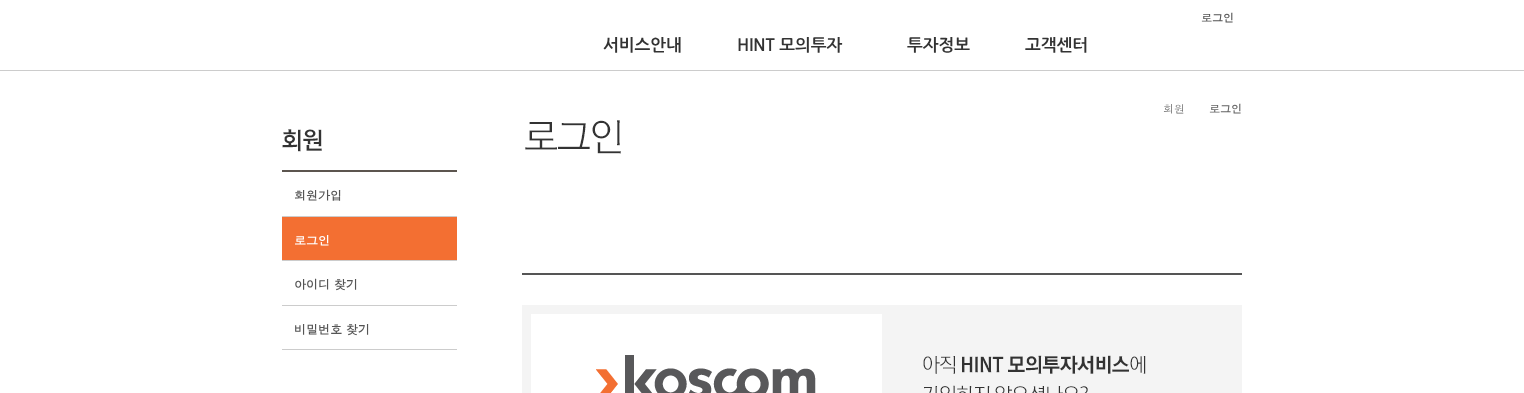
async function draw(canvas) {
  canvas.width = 1524;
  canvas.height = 393;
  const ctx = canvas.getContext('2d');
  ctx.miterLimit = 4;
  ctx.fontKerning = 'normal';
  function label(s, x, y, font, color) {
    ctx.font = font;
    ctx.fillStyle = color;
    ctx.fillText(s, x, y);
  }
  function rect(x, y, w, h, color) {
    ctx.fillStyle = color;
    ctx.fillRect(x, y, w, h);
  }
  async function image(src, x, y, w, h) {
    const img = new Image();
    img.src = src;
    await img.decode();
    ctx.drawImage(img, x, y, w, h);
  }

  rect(0, 0, 1524, 393, '#fff');
  rect(0, 70, 1524, 1, '#ccc');
  label('로그인', 1201, 22, 'bold 11px Dotum', '#555');
  label('서비스안내', 603, 51, 'bold 16.75px NanumGothic', '#333');
  label('HINT 모의투자', 737, 51, 'bold 16.75px NanumGothic', '#333');
  label('투자정보', 907, 51, 'bold 16.75px NanumGothic', '#333');
  label('고객센터', 1025, 51, 'bold 16.75px NanumGothic', '#333');
  rect(522, 273, 720, 2, '#555');
  label('회원', 1163, 113, '11px Dotum', '#666');
  label('로그인', 1209, 113, 'bold 11px Dotum', '#666');
  await image('assets/img1.png', 525, 120, 96, 34);
  rect(522, 305, 720, 88, '#f4f4f4');
  rect(531, 314, 351, 79, '#fff');
  await image('assets/img2.png', 596, 355, 220, 38);
  await image('assets/img3.png', 923, 355, 223, 38);
  await image('assets/img4.png', 282, 129, 40, 23);
  rect(282, 170, 175, 2, '#5c554f');
  rect(282, 216, 175, 1, '#ccc');
  label('회원가입', 294, 200, 'bold 12px Dotum', '#555');
  rect(282, 260, 175, 1, '#ccc');
  rect(282, 217, 175, 43, '#f36f32');
  label('로그인', 294, 245, 'bold 12px Dotum', '#fff');
  rect(282, 305, 175, 1, '#ccc');
  label('아이디 찾기', 294, 289, 'bold 12px Dotum', '#555');
  rect(282, 349, 175, 1, '#ccc');
  label('비밀번호 찾기', 294, 334, 'bold 12px Dotum', '#555');
}

draw(document.querySelector('canvas'));
